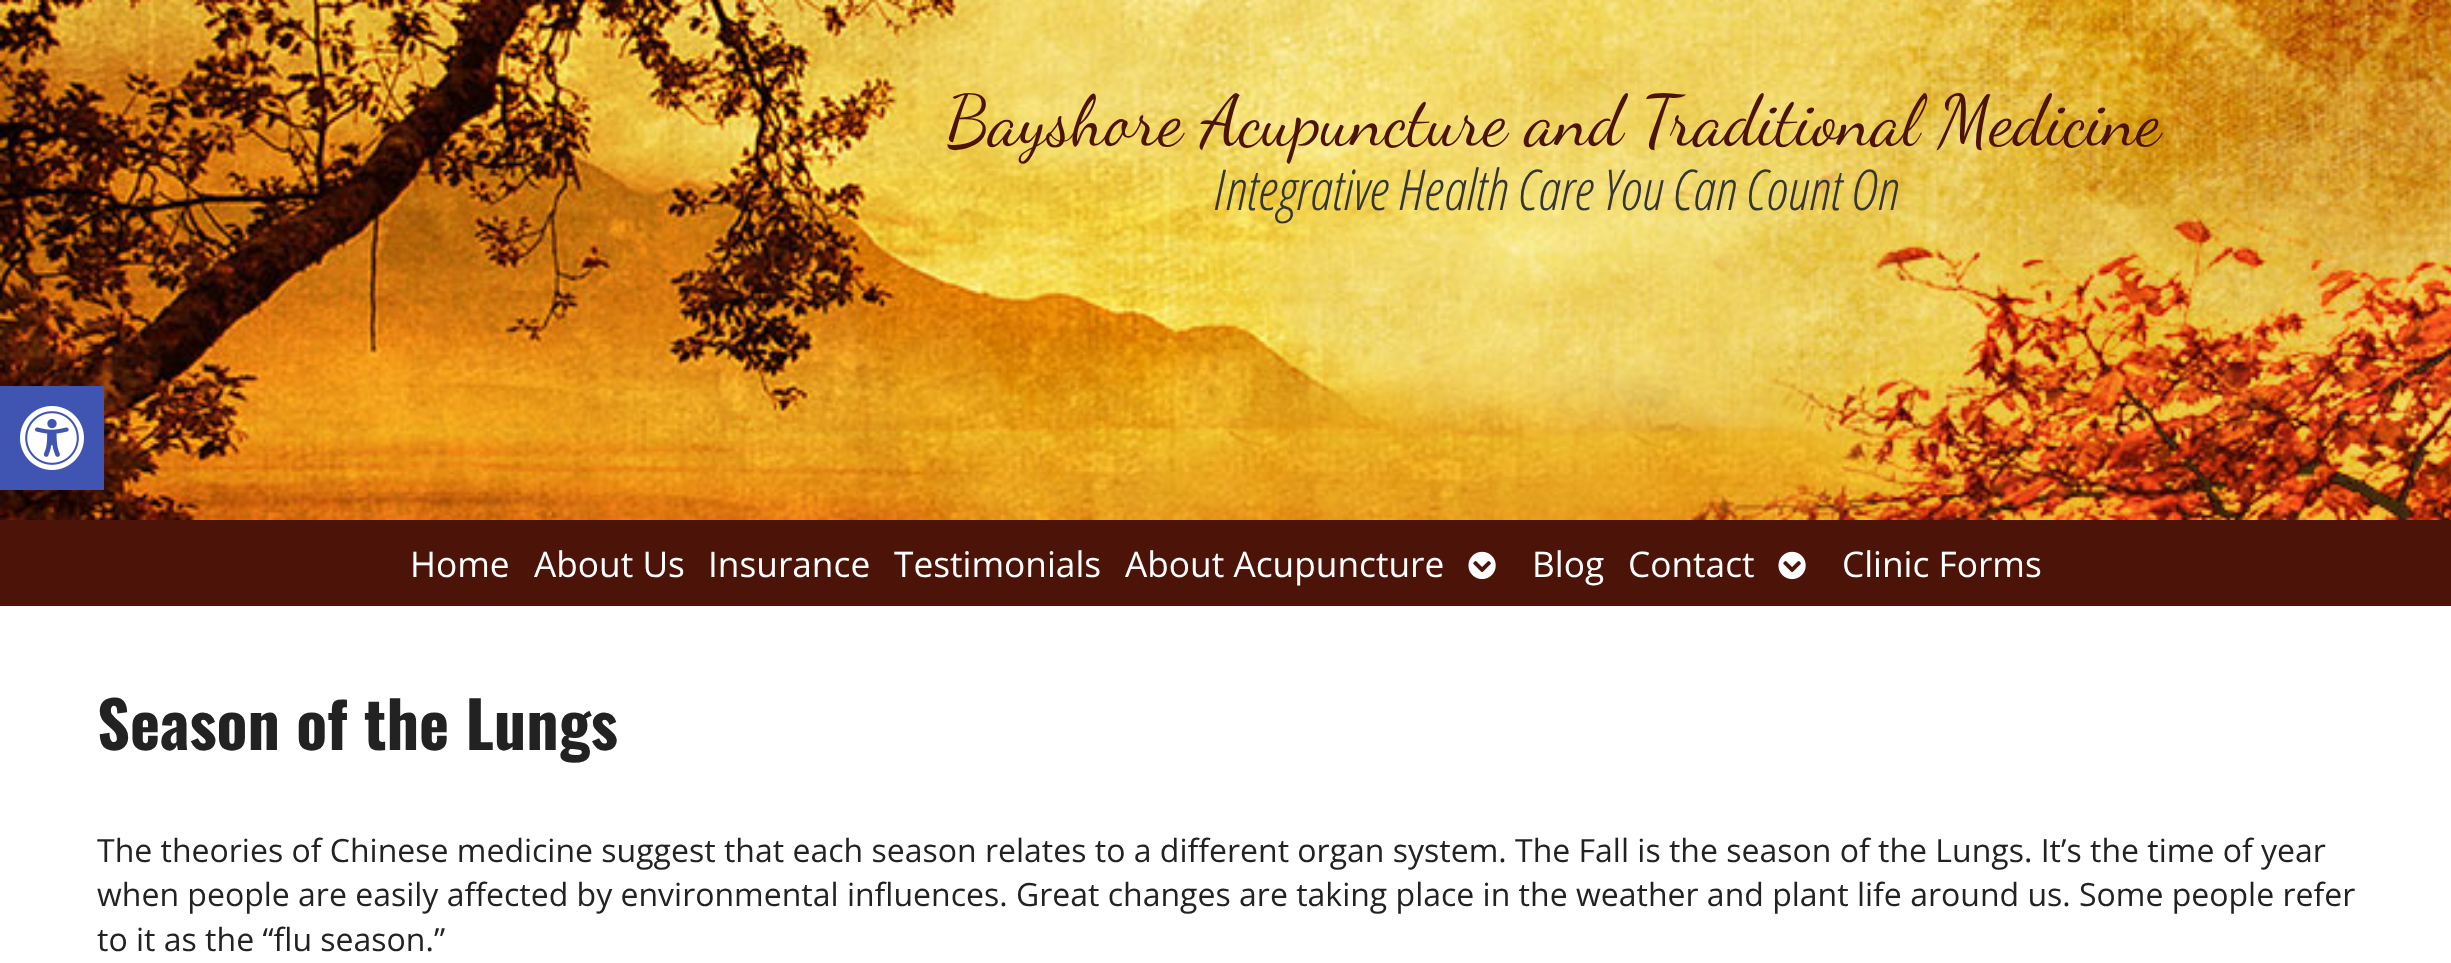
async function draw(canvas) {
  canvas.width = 2451;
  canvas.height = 963;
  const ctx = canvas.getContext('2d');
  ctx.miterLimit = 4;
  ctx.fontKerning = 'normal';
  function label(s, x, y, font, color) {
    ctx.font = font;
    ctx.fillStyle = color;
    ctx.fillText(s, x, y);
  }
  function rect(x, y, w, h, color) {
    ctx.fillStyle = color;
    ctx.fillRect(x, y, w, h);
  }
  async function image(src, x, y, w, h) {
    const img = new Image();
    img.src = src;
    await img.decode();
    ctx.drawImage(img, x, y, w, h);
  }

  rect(0, 0, 2451, 963, '#fff');
  await image('assets/img2.png', 0, 0, 2451, 520);
  rect(0, 520, 2451, 86, '#4c1408');
  ctx.fillStyle = '#0000001a';
  ctx.filter = 'blur(10px)';
  ctx.beginPath();
  ctx.rect(0, 386, 104, 104);
  ctx.fill();
  ctx.filter = 'none';
  rect(0, 386, 104, 104, '#4054b2');
  await image('assets/img1.png', 20, 406, 64, 64);
  label('Bayshore Acupuncture and Traditional Medicine', 946, 144, '70.8px Dancing Script', '#4c1408');
  label('Integrative Health Care You Can Count On', 1213, 210, 'italic 300 56.25px Open Sans Condensed', '#353535');
  label('Home', 410, 577, '35.25px Open Sans', '#fff');
  label('About Us', 534, 577, '35.25px Open Sans', '#fff');
  label('Insurance', 708, 577, '35.25px Open Sans', '#fff');
  label('Testimonials', 894, 577, '35.25px Open Sans', '#fff');
  label('About Acupuncture', 1125, 577, '35.25px Open Sans', '#fff');
  await image('assets/img3.png', 1468, 551, 28, 29);
  label('Blog', 1532, 577, '35.25px Open Sans', '#fff');
  label('Contact', 1628, 577, '35.25px Open Sans', '#fff');
  await image('assets/img3.png', 1778, 551, 28, 29);
  label('Clinic Forms', 1842, 577, '35.25px Open Sans', '#fff');
  label('Season of the Lungs', 97, 750, 'bold 64px Oswald', '#222');
  label('The theories of Chinese medicine suggest that each season relates to a different organ system. The Fall is the season of the Lungs. It’s the time of year', 97, 862, '32px Open Sans', '#222');
  label('when people are easily affected by environmental influences. Great changes are taking place in the weather and plant life around us. Some people refer', 97, 906, '32px Open Sans', '#222');
  label('to it as the “flu season.”', 97, 951, '32px Open Sans', '#222');
}

draw(document.querySelector('canvas'));
